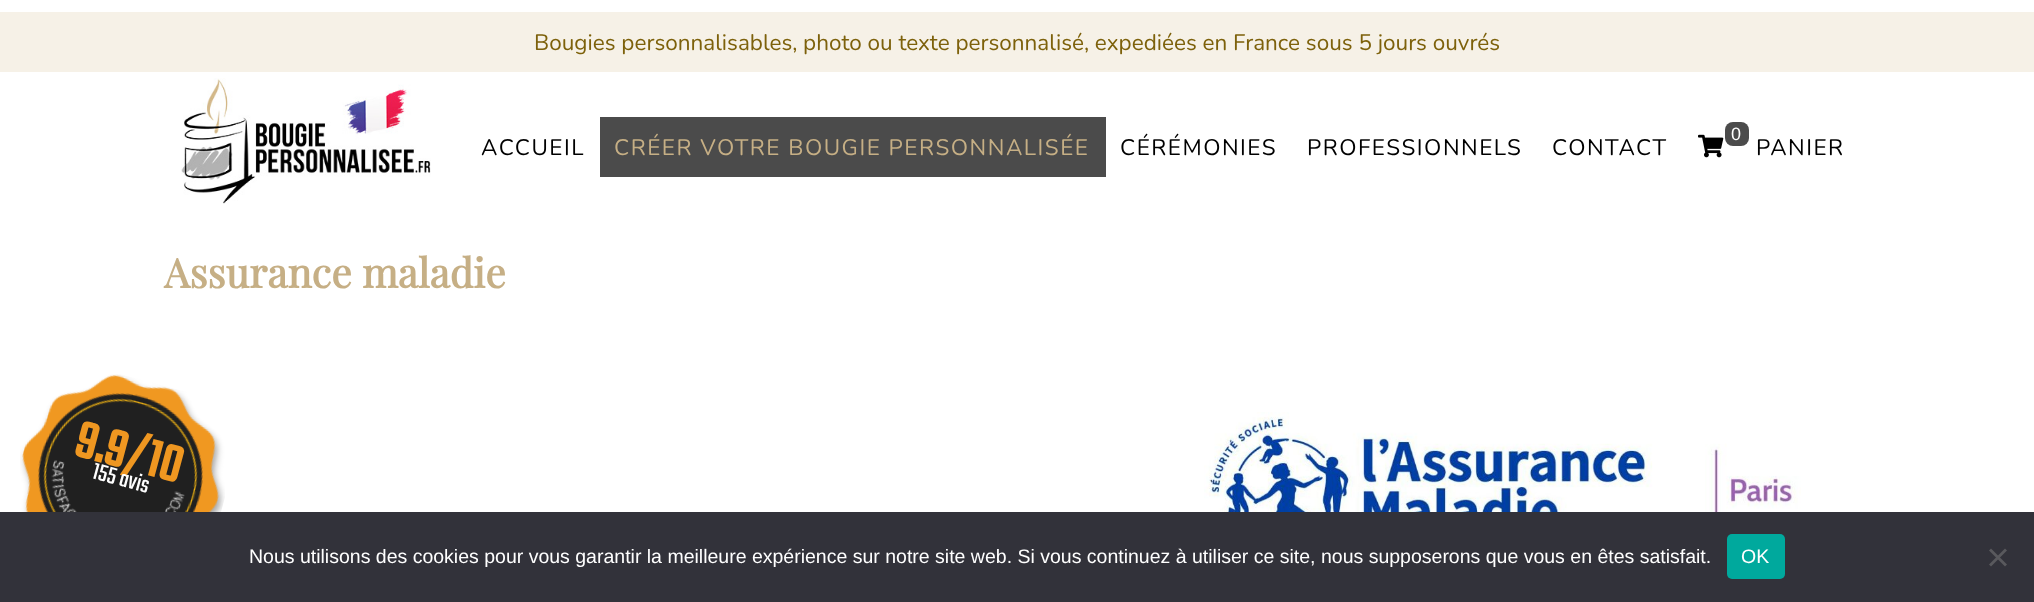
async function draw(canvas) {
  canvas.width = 2034;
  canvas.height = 602;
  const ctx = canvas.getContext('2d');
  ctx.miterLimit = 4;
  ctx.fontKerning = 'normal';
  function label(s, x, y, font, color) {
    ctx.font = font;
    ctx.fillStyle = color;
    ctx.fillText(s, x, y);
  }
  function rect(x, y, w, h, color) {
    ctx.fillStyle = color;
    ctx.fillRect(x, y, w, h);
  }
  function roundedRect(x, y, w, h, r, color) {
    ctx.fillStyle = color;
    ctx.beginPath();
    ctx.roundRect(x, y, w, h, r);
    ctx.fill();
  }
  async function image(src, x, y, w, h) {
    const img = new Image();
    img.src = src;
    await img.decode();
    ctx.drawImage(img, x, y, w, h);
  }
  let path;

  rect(0, 0, 2034, 602, '#fff');
  rect(0, 12, 2034, 60, '#f6f1e7');
  label('Bougies personnalisables, photo ou texte personnalisé, expediées en France sous 5 jours ouvrés', 534, 50, '22.5px Nunito', '#7d610b');
  await image('assets/img1.png', 181, 78, 250, 126);
  ctx.letterSpacing = '1.5px';
  label('ACCUEIL', 481, 155, '22.5px Nunito', '#000');
  rect(600, 117, 506, 60, '#4b4b4b');
  label('CRÉER VOTRE BOUGIE PERSONNALISÉE', 614, 155, '22.5px Nunito', '#c6af85');
  label('CÉRÉMONIES', 1120, 155, '22.5px Nunito', '#000');
  label('PROFESSIONNELS', 1307, 155, '22.5px Nunito', '#000');
  label('CONTACT', 1552, 155, '22.5px Nunito', '#000');
  await image('assets/img2.png', 1698, 134, 26, 24);
  roundedRect(1725, 122, 24, 24, 8, '#4b4b4b');
  label('0', 1731, 140, '18px Liberation Sans', '#fff');
  label('PANIER', 1756, 155, '22.5px Nunito', '#000');
  ctx.letterSpacing = '0px';
  label('Assurance maladie', 164, 288, 'bold 40.5px Playfair Display', '#c6af85');
  await image('assets/img3.png', 1204, 412, 597, 100);
  await image('assets/img4.png', 20, 374, 205, 138);
  ctx.font = 'bold 56px Teko';
  ctx.fillStyle = '#ef9721';
  ctx.save();
  ctx.translate(72, 455);
  ctx.rotate(15 * Math.PI / 180);
  ctx.fillText('9.9/10', 0, 0);
  ctx.restore();
  ctx.font = '300 25.5px Teko';
  ctx.fillStyle = '#fff';
  ctx.save();
  ctx.translate(91, 478);
  ctx.rotate(15 * Math.PI / 180);
  ctx.fillText('155 avis', 0, 0);
  ctx.restore();
  rect(0, 512, 2034, 90, '#32323a');
  label('Nous utilisons des cookies pour vous garantir la meilleure expérience sur notre site web. Si vous continuez à utiliser ce site, nous supposerons que vous en êtes satisfait.', 249, 563, '19.5px Liberation Sans', '#fff');
  roundedRect(1727, 534, 58, 45, 5, '#00a99d');
  label('OK', 1741, 563, '19.5px Liberation Sans', '#fff');
  ctx.fillStyle = '#59595d';
  path = new Path2D('M2005 548.5L2007 550.5L1991 566.5L1989 564.5Z');
  ctx.fill(path);
  path = new Path2D('M1989 550.5L1991 548.5L2007 564.5L2005 566.5Z');
  ctx.fill(path);
}

draw(document.querySelector('canvas'));
